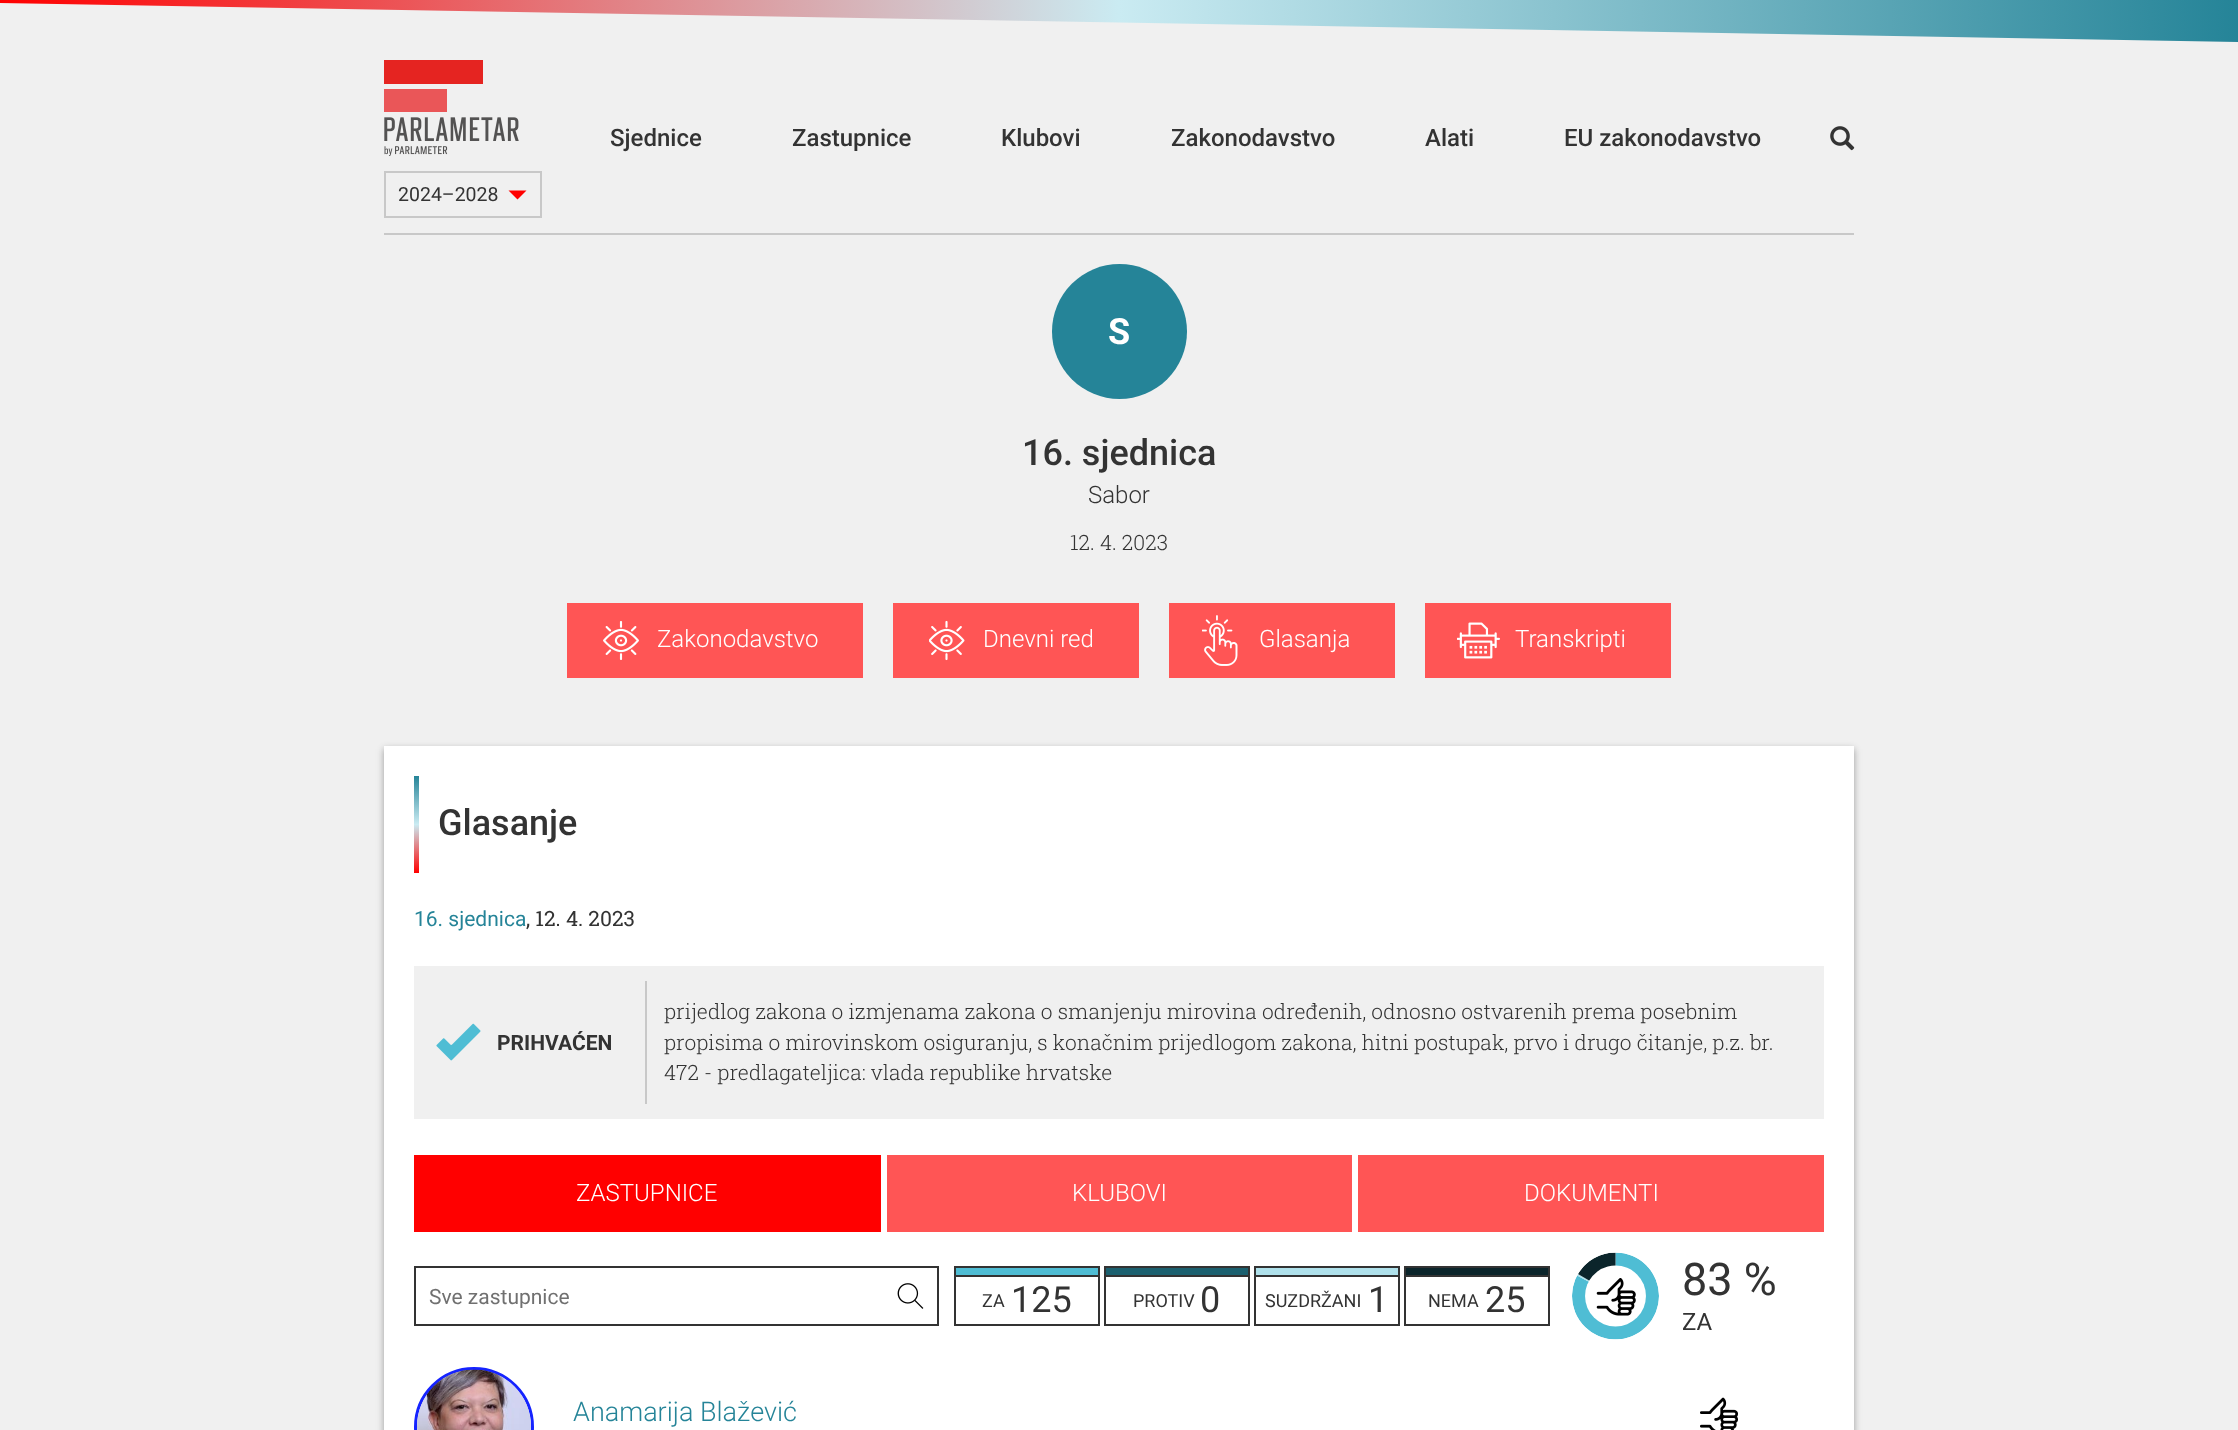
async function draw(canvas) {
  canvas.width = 2238;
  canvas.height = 1430;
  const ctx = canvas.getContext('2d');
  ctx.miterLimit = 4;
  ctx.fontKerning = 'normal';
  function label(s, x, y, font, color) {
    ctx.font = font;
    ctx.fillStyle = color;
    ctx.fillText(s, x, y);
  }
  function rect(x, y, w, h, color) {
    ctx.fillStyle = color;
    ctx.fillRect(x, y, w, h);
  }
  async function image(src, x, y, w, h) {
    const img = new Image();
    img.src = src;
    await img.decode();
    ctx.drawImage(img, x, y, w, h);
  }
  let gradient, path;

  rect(0, 0, 2238, 1430, '#f0f0f0');
  gradient = ctx.createLinearGradient(0, 30, 2238, 30);
  gradient.addColorStop(0, '#f00');
  gradient.addColorStop(0.5, '#caebf2');
  gradient.addColorStop(1, '#258498');
  ctx.fillStyle = gradient;
  ctx.fillRect(0, 0, 2238, 42);
  ctx.save();
  ctx.beginPath();
  ctx.rect(0, 0, 2238, 60);
  ctx.clip();
  ctx.fillStyle = '#f0f0f0';
  path = new Path2D('M-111 1L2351 44L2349 164L-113 121Z');
  ctx.fill(path);
  ctx.restore();
  rect(384, 233, 1470, 2, '#c8c8c8');
  label('Sjednice', 610, 146, '500 24px Roboto', '#333');
  label('Zastupnice', 792, 146, '500 24px Roboto', '#333');
  label('Klubovi', 1001, 146, '500 24px Roboto', '#333');
  label('Zakonodavstvo', 1171, 146, '500 24px Roboto', '#333');
  label('Alati', 1425, 146, '500 24px Roboto', '#333');
  label('EU zakonodavstvo', 1564, 146, '500 24px Roboto', '#333');
  await image('assets/img1.png', 1830, 126, 25, 25);
  await image('assets/img2.png', 384, 60, 135, 96);
  ctx.strokeStyle = '#c8c8c8';
  ctx.lineWidth = 2;
  ctx.strokeRect(385, 172, 156, 45);
  label('2024–2028', 398, 201, '19.5px Roboto', '#333');
  ctx.fillStyle = '#f00';
  path = new Path2D('M508.5 190.5H526.5L517.5 199.5Z');
  ctx.fill(path);
  ctx.fillStyle = '#258498';
  ctx.beginPath();
  ctx.arc(1119.5, 331.5, 67.5, 0, 2 * Math.PI);
  ctx.fill();
  label('S', 1108, 344, 'bold 36px Roboto', '#fff');
  label('16. sjednica', 1022, 465, '500 36px Roboto', '#333');
  label('Sabor', 1088, 503, '300 24px Roboto', '#333');
  label('12. 4. 2023', 1070, 550, '300 21px Roboto Slab', '#333');
  rect(567, 603, 296, 75, '#f55');
  await image('assets/img3.png', 603, 621, 36, 39);
  label('Zakonodavstvo', 657, 647, '300 24px Roboto', '#fff');
  rect(893, 603, 246, 75, '#f55');
  await image('assets/img4.png', 929, 620, 36, 41);
  label('Dnevni red', 983, 647, '300 24px Roboto', '#fff');
  rect(1169, 603, 226, 75, '#f55');
  await image('assets/img5.png', 1202, 615, 36, 51);
  label('Glasanja', 1259, 647, '300 24px Roboto', '#fff');
  rect(1425, 603, 246, 75, '#f55');
  await image('assets/img6.png', 1457, 622, 43, 37);
  label('Transkripti', 1515, 647, '300 24px Roboto', '#fff');
  ctx.fillStyle = '#0000001f';
  ctx.filter = 'blur(4.5px)';
  ctx.beginPath();
  ctx.rect(384, 749, 1470, 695);
  ctx.fill();
  ctx.filter = 'none';
  ctx.fillStyle = '#0000003d';
  ctx.filter = 'blur(3px)';
  ctx.beginPath();
  ctx.rect(384, 749, 1470, 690);
  ctx.fill();
  ctx.filter = 'none';
  rect(384, 746, 1470, 684, '#fff');
  gradient = ctx.createLinearGradient(416, 776, 416, 873);
  gradient.addColorStop(0, '#258498');
  gradient.addColorStop(0.5, '#caebf2');
  gradient.addColorStop(1, '#f00');
  ctx.fillStyle = gradient;
  ctx.fillRect(414, 776, 5, 97);
  label('Glasanje', 438, 835, '500 36px Roboto', '#333');
  label('16. sjednica', 414, 926, '21px Roboto', '#258498');
  label(', 12. 4. 2023', 526, 926, '21px Roboto Slab', '#333');
  rect(414, 966, 1410, 153, '#f0f0f0');
  rect(645, 981, 2, 123, '#c8c8c8');
  await image('assets/img7.png', 436, 1023, 45, 38);
  label('PRIHVAĆEN', 497, 1050, 'bold 21px Roboto', '#333');
  label('prijedlog zakona o izmjenama zakona o smanjenju mirovina određenih, odnosno ostvarenih prema posebnim', 664, 1019, '300 21px Roboto Slab', '#333');
  label('propisima o mirovinskom osiguranju, s konačnim prijedlogom zakona, hitni postupak, prvo i drugo čitanje, p.z. br.', 664, 1050, '300 21px Roboto Slab', '#333');
  label('472 - predlagateljica: vlada republike hrvatske', 664, 1080, '300 21px Roboto Slab', '#333');
  rect(414, 1155, 467, 77, '#f00');
  label('ZASTUPNICE', 576, 1201, '300 24px Roboto', '#fff');
  rect(887, 1155, 465, 77, '#f55');
  label('KLUBOVI', 1072, 1201, '300 24px Roboto', '#fff');
  rect(1358, 1155, 466, 77, '#f55');
  label('DOKUMENTI', 1524, 1201, '300 24px Roboto', '#fff');
  await image('assets/img8.png', 897, 1283, 27, 26);
  ctx.strokeStyle = '#333';
  ctx.strokeRect(415, 1267, 523, 58);
  ctx.save();
  ctx.beginPath();
  ctx.rect(429, 1284, 464, 24);
  ctx.clip();
  label('Sve zastupnice', 429, 1304, '21px Roboto', '#707070');
  ctx.restore();
  ctx.strokeRect(955, 1267, 144, 58);
  rect(956, 1268, 142, 7, '#4fbdd4');
  rect(956, 1275, 142, 2, '#333');
  label('ZA', 982, 1307, '18px Roboto', '#333');
  label('125', 1011, 1312, '36px Roboto', '#333');
  ctx.strokeRect(1105, 1267, 144, 58);
  rect(1106, 1268, 142, 7, '#1b606f');
  rect(1106, 1275, 142, 2, '#333');
  label('PROTIV', 1133, 1307, '18px Roboto', '#333');
  label('0', 1200, 1312, '36px Roboto', '#333');
  ctx.strokeRect(1255, 1267, 144, 58);
  rect(1256, 1268, 142, 7, '#afe1eb');
  rect(1256, 1275, 142, 2, '#333');
  label('SUZDRŽANI', 1265, 1307, '18px Roboto', '#333');
  label('1', 1368, 1312, '36px Roboto', '#333');
  ctx.strokeRect(1405, 1267, 144, 58);
  rect(1406, 1268, 142, 7, '#0b252b');
  rect(1406, 1275, 142, 2, '#333');
  label('NEMA', 1428, 1307, '18px Roboto', '#333');
  label('25', 1485, 1312, '36px Roboto', '#333');
  await image('assets/img9.png', 1596, 1278, 40, 38);
  await image('assets/img10.png', 1572, 1252, 87, 88);
  label('83 %', 1682, 1295, '45px Roboto', '#333');
  label('ZA', 1682, 1330, '24px Roboto', '#333');
  ctx.beginPath();
  ctx.arc(474, 1427, 58.5, 0, 2 * Math.PI);
  ctx.strokeStyle = '#1523ff';
  ctx.lineWidth = 3;
  ctx.stroke();
  await image('assets/img11.png', 417, 1369, 114, 61);
  label('Anamarija Blažević', 573, 1421, '300 27px Roboto', '#258498');
  await image('assets/img12.png', 1700, 1397, 38, 33);
}

draw(document.querySelector('canvas'));
